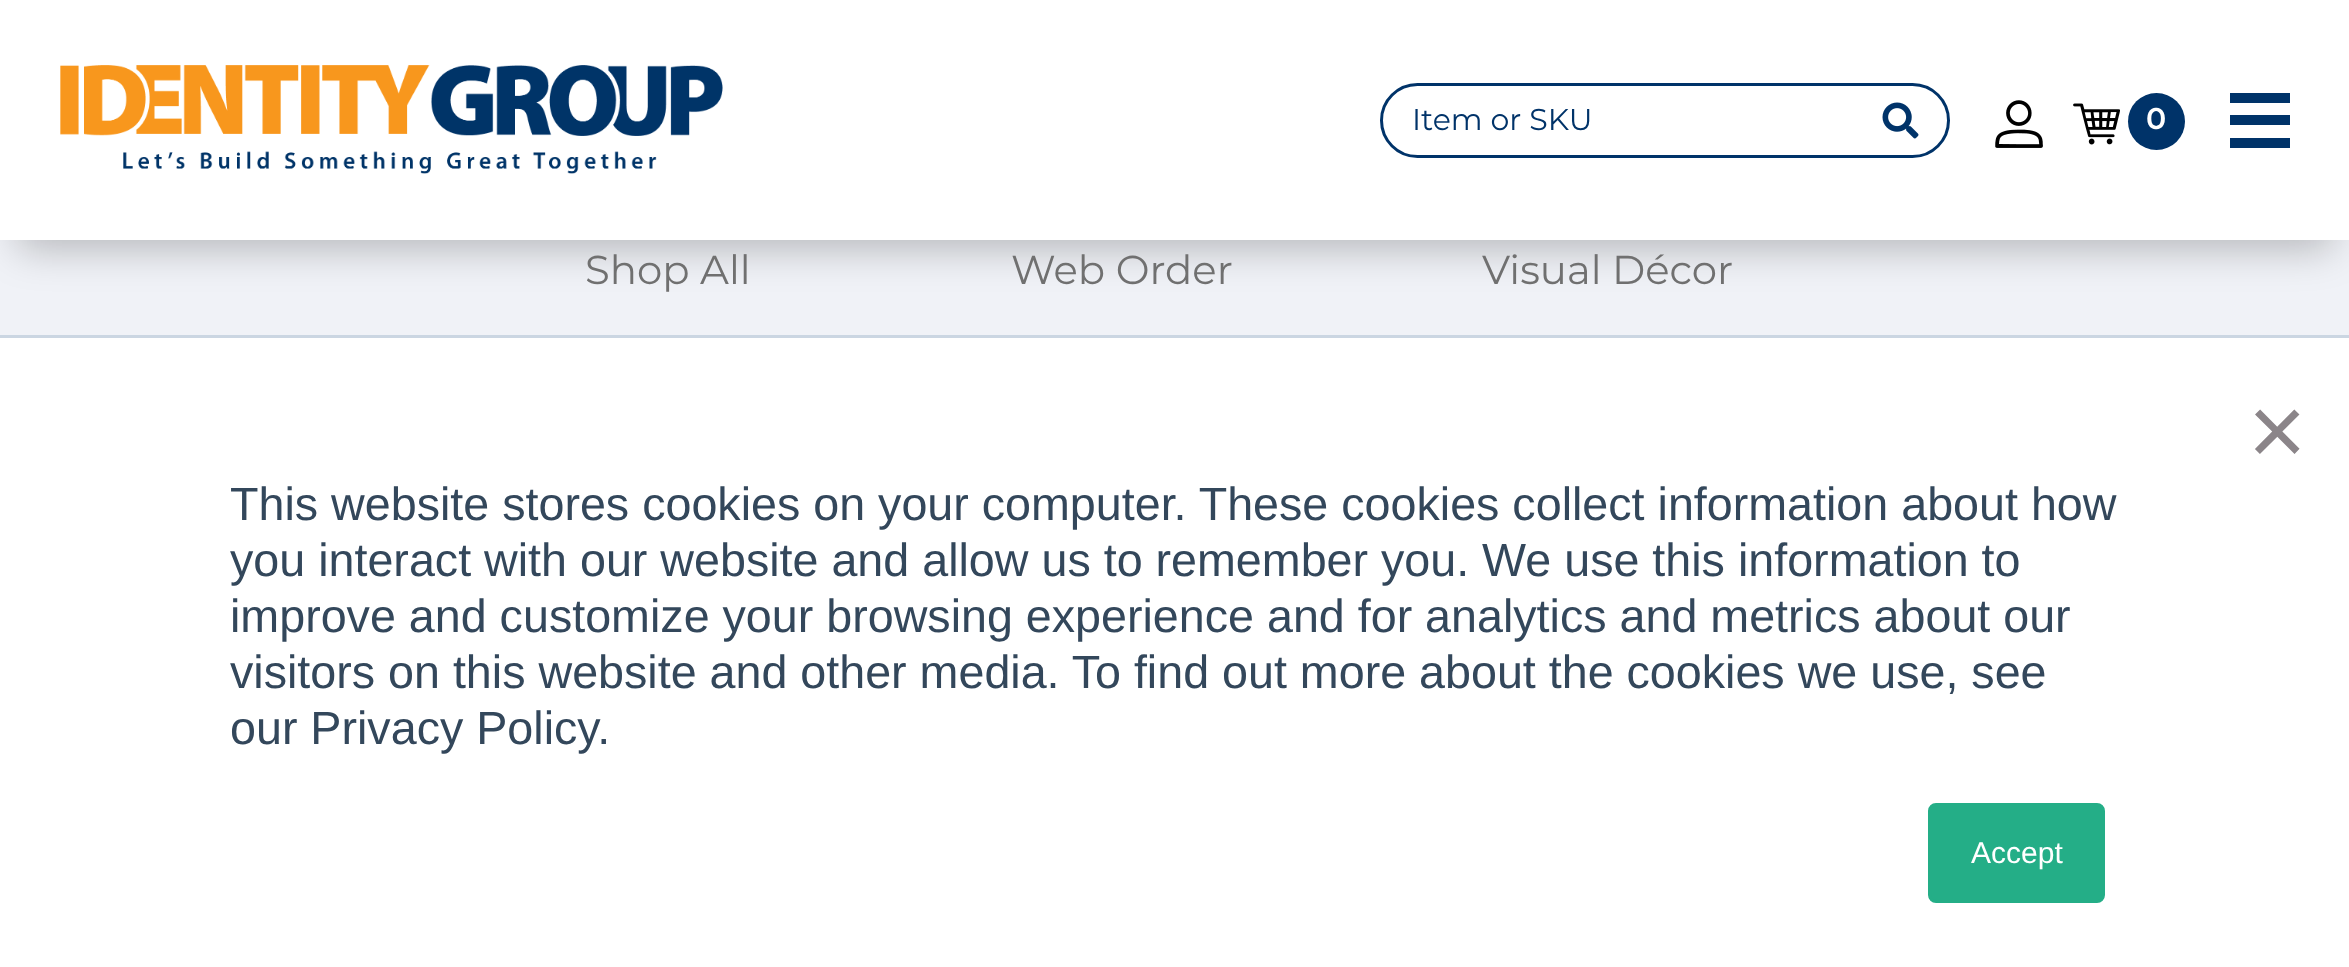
async function draw(canvas) {
  canvas.width = 2349;
  canvas.height = 967;
  const ctx = canvas.getContext('2d');
  ctx.miterLimit = 4;
  ctx.fontKerning = 'normal';
  function label(s, x, y, font, color) {
    ctx.font = font;
    ctx.fillStyle = color;
    ctx.fillText(s, x, y);
  }
  function rect(x, y, w, h, color) {
    ctx.fillStyle = color;
    ctx.fillRect(x, y, w, h);
  }
  async function image(src, x, y, w, h) {
    const img = new Image();
    img.src = src;
    await img.decode();
    ctx.drawImage(img, x, y, w, h);
  }

  rect(0, 0, 2349, 967, '#f0f2f7');
  ctx.fillStyle = '#00000040';
  ctx.filter = 'blur(20px)';
  ctx.beginPath();
  ctx.rect(18, 43, 2315, 205);
  ctx.fill();
  ctx.filter = 'none';
  rect(0, 0, 2349, 240, '#fff');
  await image('assets/img1.png', 60, 65, 663, 109);
  ctx.beginPath();
  ctx.roundRect(1381.5, 84.5, 567, 72, 36);
  ctx.strokeStyle = '#003369';
  ctx.lineWidth = 3;
  ctx.stroke();
  label('Item or SKU', 1412, 130, '30px Montserrat', '#003369');
  await image('assets/img2.png', 1882, 102, 37, 37);
  await image('assets/img3.png', 1995, 100, 48, 48);
  await image('assets/img4.png', 2073, 103, 47, 42);
  ctx.beginPath();
  ctx.arc(2156.5, 121.5, 28.5, 0, 2 * Math.PI);
  ctx.fill();
  label('0', 2146, 129, '600 30px Montserrat', '#fff');
  rect(2230, 93, 60, 10, '#003369');
  rect(2230, 115, 60, 10, '#003369');
  rect(2230, 138, 60, 10, '#003369');
  label('Shop All', 585, 284, '40.25px Montserrat', '#707070');
  label('Web Order', 1011, 284, '40.25px Montserrat', '#707070');
  label('Visual Décor', 1482, 284, '40.25px Montserrat', '#707070');
  rect(0, 338, 2349, 629, '#fff');
  rect(0, 335, 2349, 3, '#cbd6e2');
  label('×', 2248, 465, '100px Liberation Sans', '#8b8589');
  label('This website stores cookies on your computer. These cookies collect information about how', 230, 520, '46.65px Liberation Sans', '#33475b');
  label('you interact with our website and allow us to remember you. We use this information to', 230, 576, '46.65px Liberation Sans', '#33475b');
  label('improve and customize your browsing experience and for analytics and metrics about our', 230, 632, '46.65px Liberation Sans', '#33475b');
  label('visitors on this website and other media. To find out more about the cookies we use, see', 230, 688, '46.65px Liberation Sans', '#33475b');
  label('our Privacy Policy.', 230, 744, '46.65px Liberation Sans', '#33475b');
  ctx.fillStyle = '#24ae87';
  ctx.beginPath();
  ctx.roundRect(1929.5, 804.5, 174, 97, 6.5);
  ctx.fill();
  ctx.strokeStyle = '#24ae87';
  ctx.stroke();
  label('Accept', 1971, 863, '30px Liberation Sans', '#fff');
}

draw(document.querySelector('canvas'));
